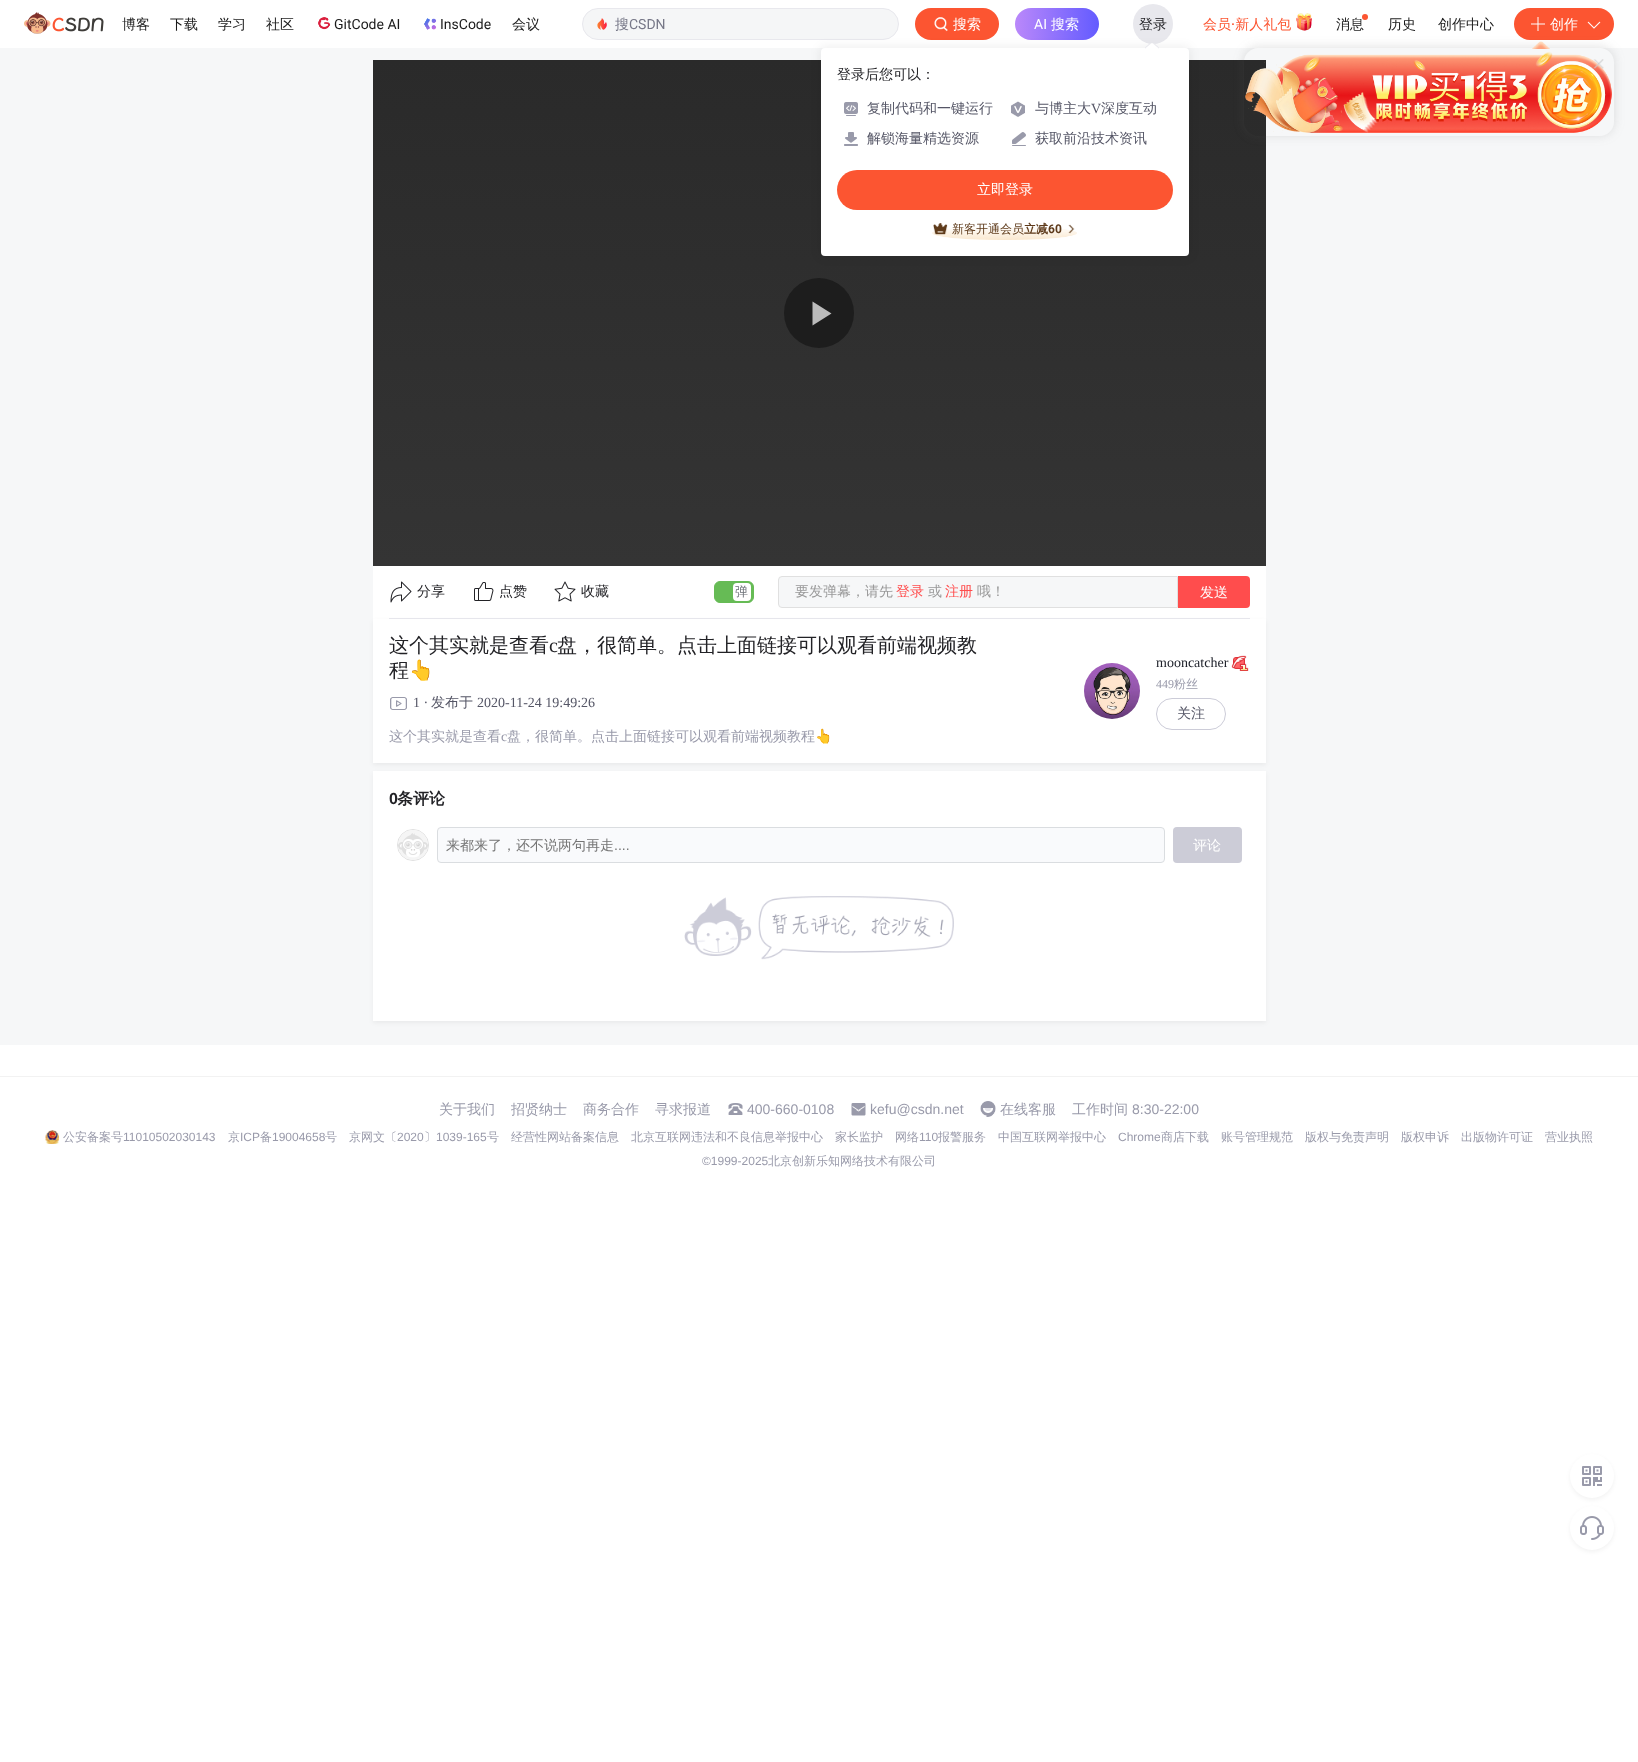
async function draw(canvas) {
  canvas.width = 1638;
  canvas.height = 1762;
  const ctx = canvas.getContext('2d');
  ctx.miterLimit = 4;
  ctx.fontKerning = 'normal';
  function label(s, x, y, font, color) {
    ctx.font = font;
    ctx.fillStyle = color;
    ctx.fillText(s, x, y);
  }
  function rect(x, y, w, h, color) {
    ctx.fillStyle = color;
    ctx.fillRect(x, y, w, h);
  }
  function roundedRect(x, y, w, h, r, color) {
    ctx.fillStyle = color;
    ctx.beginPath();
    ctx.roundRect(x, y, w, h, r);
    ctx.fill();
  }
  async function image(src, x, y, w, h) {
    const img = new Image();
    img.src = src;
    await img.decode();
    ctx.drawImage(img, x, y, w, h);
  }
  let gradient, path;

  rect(0, 0, 1638, 1762, '#fff');
  await image('assets/img1.png', 24, 12, 80, 22);
  label('博客', 122, 29, '500 14px WenQuanYi Zen Hei', '#1a1a1a');
  label('下载', 170, 29, '500 14px WenQuanYi Zen Hei', '#1a1a1a');
  label('学习', 218, 29, '500 14px WenQuanYi Zen Hei', '#1a1a1a');
  label('社区', 266, 29, '500 14px WenQuanYi Zen Hei', '#1a1a1a');
  await image('assets/img2.png', 318, 17, 13, 13);
  label('GitCode AI', 334, 29, '14px Roboto', '#1a1a1a');
  await image('assets/img3.png', 424, 18, 13, 12);
  label('InsCode', 440, 29, '14px Roboto', '#1a1a1a');
  label('会议', 512, 29, '500 14px WenQuanYi Zen Hei', '#1a1a1a');
  ctx.fillStyle = '#f5f6f7';
  ctx.beginPath();
  ctx.roundRect(582.5, 8.5, 316, 31, 15.5);
  ctx.fill();
  ctx.strokeStyle = '#e8e8ed';
  ctx.stroke();
  await image('assets/img4.png', 597, 18, 10, 12);
  label('搜', 615, 29, '500 14px WenQuanYi Zen Hei', '#777888');
  label('CSDN', 629, 29, '14px Roboto', '#777888');
  roundedRect(915, 8, 84, 32, 16, '#fc5531');
  await image('assets/img5.png', 934, 17, 14, 15);
  label('搜索', 953, 29, '500 14px WenQuanYi Zen Hei', '#fff');
  gradient = ctx.createLinearGradient(1015, 24, 1099, 24);
  gradient.addColorStop(0, '#ba88fa');
  gradient.addColorStop(1, '#635bff');
  ctx.fillStyle = gradient;
  ctx.beginPath();
  ctx.roundRect(1015, 8, 84, 32, 16);
  ctx.fill();
  label('AI', 1034, 29, '14px Roboto', '#fff');
  label('搜索', 1051, 29, '500 14px WenQuanYi Zen Hei', '#fff');
  ctx.fillStyle = '#e8e8ed';
  ctx.beginPath();
  ctx.arc(1153, 24, 20, 0, 2 * Math.PI);
  ctx.fill();
  label('登录', 1139, 29, '500 14px WenQuanYi Zen Hei', '#222226');
  rect(0, 48, 1638, 997, '#f6f7f8');
  gradient = ctx.createLinearGradient(820, 60, 820, 566);
  gradient.addColorStop(0, '#2a2a2a');
  gradient.addColorStop(1, '#343434');
  ctx.fillStyle = gradient;
  ctx.fillRect(373, 60, 893, 506);
  ctx.fillStyle = '#0000000f';
  ctx.filter = 'blur(5px)';
  ctx.beginPath();
  ctx.roundRect(819, 46, 372, 212, 6);
  ctx.fill();
  ctx.filter = 'none';
  roundedRect(821, 48, 368, 208, 4, '#fff');
  await image('assets/img6.png', 1145, 43, 14, 6);
  label('登录后您可以：', 837, 79, '500 14px WenQuanYi Zen Hei', '#222226');
  await image('assets/img7.png', 844, 102, 14, 14);
  label('复制代码和一键运行', 867, 113, '500 14px WenQuanYi Zen Hei', '#555666');
  await image('assets/img8.png', 1011, 101, 14, 16);
  label('与博主大', 1035, 113, '500 14px WenQuanYi Zen Hei', '#555666');
  label('V', 1091, 113, '14px Liberation Serif', '#555666');
  label('深度互动', 1101, 113, '500 14px WenQuanYi Zen Hei', '#555666');
  await image('assets/img9.png', 844, 132, 14, 14);
  label('解锁海量精选资源', 867, 143, '500 14px WenQuanYi Zen Hei', '#555666');
  await image('assets/img10.png', 1012, 132, 14, 14);
  label('获取前沿技术资讯', 1035, 143, '500 14px WenQuanYi Zen Hei', '#555666');
  roundedRect(837, 170, 336, 40, 20, '#fc5531');
  label('立即登录', 977, 194, '500 14px WenQuanYi Zen Hei', '#fff');
  await image('assets/img11.png', 932, 227, 145, 13);
  await image('assets/img12.png', 933, 223, 15, 12);
  label('新客开通会员', 952, 233, '500 12px WenQuanYi Zen Hei', '#5e3a1a');
  label('立减', 1024, 233, 'bold 12px WenQuanYi Zen Hei', '#5e3a1a');
  label('60', 1048, 233, 'bold 12px Roboto', '#5e3a1a');
  await image('assets/img13.png', 1068, 224, 7, 10);
  label('会员 新人礼包', 1203, 29, '500 14px WenQuanYi Zen Hei', '#fc5531');
  await image('assets/img14.png', 1296, 13, 16, 18);
  label('·', 1231, 29, '500 14px Roboto', '#fc5531');
  label('消息', 1336, 29, '500 14px WenQuanYi Zen Hei', '#1a1a1a');
  ctx.fillStyle = '#fc5531';
  ctx.beginPath();
  ctx.arc(1365, 17, 3, 0, 2 * Math.PI);
  ctx.fill();
  label('历史', 1388, 29, '500 14px WenQuanYi Zen Hei', '#1a1a1a');
  label('创作中心', 1438, 29, '500 14px WenQuanYi Zen Hei', '#1a1a1a');
  roundedRect(1514, 8, 100, 32, 16, '#fc5531');
  await image('assets/img15.png', 1531, 17, 14, 14);
  label('创作', 1550, 29, '500 14px WenQuanYi Zen Hei', '#fff');
  await image('assets/img16.png', 1587, 21, 14, 8);
  ctx.save();
  path = new Path2D('M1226 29H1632V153H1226ZM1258 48H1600C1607.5 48 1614 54.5 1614 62V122C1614 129.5 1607.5 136 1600 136H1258C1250.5 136 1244 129.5 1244 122V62C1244 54.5 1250.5 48 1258 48Z');
  ctx.clip(path, 'evenodd');
  ctx.fillStyle = '#67676730';
  ctx.filter = 'blur(5.5px)';
  ctx.beginPath();
  ctx.roundRect(1244, 47, 370, 88, 14);
  ctx.fill();
  ctx.filter = 'none';
  ctx.restore();
  await image('assets/img17.png', 1532, 41, 18, 8);
  await image('assets/img18.png', 1245, 51, 367, 82);
  await image('assets/img19.png', 1593, 59, 11, 10);
  ctx.fillStyle = '#1d1d1d';
  ctx.beginPath();
  ctx.arc(819, 313, 35, 0, 2 * Math.PI);
  ctx.fill();
  ctx.fillStyle = '#bbb';
  path = new Path2D('M822 307.5L831.5 313.5L822 319.5ZM812.5 301.5L822 307.5V319.5L812.5 325.5Z');
  ctx.fill(path);
  rect(373, 566, 893, 53, '#fff');
  await image('assets/img20.png', 390, 581, 22, 22);
  label('分享', 417, 596, '500 14px WenQuanYi Zen Hei', '#222226');
  await image('assets/img21.png', 474, 582, 20, 19);
  label('点赞', 499, 596, '500 14px WenQuanYi Zen Hei', '#222226');
  await image('assets/img22.png', 554, 581, 22, 21);
  label('收藏', 581, 596, '500 14px WenQuanYi Zen Hei', '#222226');
  ctx.fillStyle = '#6b5';
  ctx.beginPath();
  ctx.roundRect(714.5, 581.5, 39, 21, 5.5);
  ctx.fill();
  ctx.strokeStyle = '#6b5';
  ctx.stroke();
  roundedRect(733, 583, 18, 18, 4, '#fff');
  label('弹', 735, 596, '500 13px WenQuanYi Zen Hei', '#6d7278');
  ctx.fillStyle = '#f6f7f8';
  ctx.beginPath();
  ctx.roundRect(778.5, 576.5, 399, 31, [3.5, 0, 0, 3.5]);
  ctx.fill();
  ctx.strokeStyle = '#e0e0e0';
  ctx.stroke();
  label('要发弹幕，请先', 795, 596, '500 14px WenQuanYi Zen Hei', '#999');
  label('登录', 896, 596, '500 14px WenQuanYi Zen Hei', '#ff4d4d');
  label('或', 928, 596, '500 14px WenQuanYi Zen Hei', '#999');
  label('注册', 945, 596, '500 14px WenQuanYi Zen Hei', '#ff4d4d');
  label('哦！', 977, 596, '500 14px WenQuanYi Zen Hei', '#999');
  ctx.fillStyle = '#ff4d4d';
  ctx.beginPath();
  ctx.roundRect(1178, 576, 72, 32, [0, 4, 4, 0]);
  ctx.fill();
  label('发送', 1200, 597, '500 14px WenQuanYi Zen Hei', '#fff');
  rect(389, 618, 861, 1, '#e8e8ee');
  ctx.fillStyle = '#0000000d';
  ctx.filter = 'blur(2px)';
  ctx.beginPath();
  ctx.rect(373, 621, 893, 144);
  ctx.fill();
  ctx.filter = 'none';
  rect(373, 619, 893, 144, '#fff');
  label('这个其实就是查看', 389, 652, '500 20px WenQuanYi Zen Hei', '#222226');
  label('c', 549, 652, '20px Liberation Serif', '#222226');
  label('盘，很简单。点击上面链接可以观看前端视频教', 557, 652, '500 20px WenQuanYi Zen Hei', '#222226');
  label('程', 389, 677, '500 20px WenQuanYi Zen Hei', '#222226');
  label('👆', 409, 677, '20px Noto Color Emoji', '#222226');
  await image('assets/img23.png', 390, 697, 17, 13);
  label('1 ·', 413, 707, '14px Liberation Serif', '#555666');
  label('发布于', 431, 707, '500 14px WenQuanYi Zen Hei', '#555666');
  label('2020-11-24 19:49:26', 477, 707, '14px Liberation Serif', '#555666');
  label('这个其实就是查看', 389, 741, '500 14px WenQuanYi Zen Hei', '#999aaa');
  label('c', 501, 741, '14px Liberation Serif', '#999aaa');
  label('盘，很简单。点击上面链接可以观看前端视频教程', 507, 741, '500 14px WenQuanYi Zen Hei', '#999aaa');
  label('👆', 815, 741, '14px Noto Color Emoji', '#999aaa');
  await image('assets/img24.png', 1084, 663, 56, 56);
  label('mooncatcher', 1156, 667, '14px Liberation Serif', '#20232c');
  await image('assets/img25.png', 1231, 655, 18, 16);
  label('449', 1156, 688, '12px Liberation Serif', '#999aaa');
  label('粉丝', 1174, 688, '500 12px WenQuanYi Zen Hei', '#999aaa');
  ctx.beginPath();
  ctx.roundRect(1156.5, 698.5, 69, 31, 15.5);
  ctx.strokeStyle = '#ccccd8';
  ctx.stroke();
  label('关注', 1177, 718, '500 14px WenQuanYi Zen Hei', '#555666');
  ctx.fillStyle = '#0000000d';
  ctx.filter = 'blur(2px)';
  ctx.beginPath();
  ctx.rect(373, 773, 893, 250);
  ctx.fill();
  ctx.filter = 'none';
  rect(373, 771, 893, 250, '#fff');
  label('0', 389, 804, 'bold 16px Liberation Sans', '#222226');
  label('条评论', 397, 804, 'bold 16px WenQuanYi Zen Hei', '#222226');
  ctx.beginPath();
  ctx.arc(413, 845, 15.5, 0, 2 * Math.PI);
  ctx.strokeStyle = '#e0e0e0';
  ctx.stroke();
  await image('assets/img26.png', 398, 830, 30, 30);
  ctx.fillStyle = '#f9fafc';
  ctx.beginPath();
  ctx.roundRect(437.5, 827.5, 727, 35, 3.5);
  ctx.fill();
  ctx.strokeStyle = '#dadde0';
  ctx.stroke();
  label('来都来了，还不说两句再走', 446, 850, '500 14px WenQuanYi Zen Hei', '#757575');
  label('....', 614, 850, '14px Liberation Sans', '#757575');
  roundedRect(1173, 827, 69, 36, 4, '#ccccd7');
  label('评论', 1193, 850, '500 14px WenQuanYi Zen Hei', '#fff');
  await image('assets/img27.png', 684, 896, 270, 64);
  rect(0, 1076, 1638, 1, '#f2f2f2');
  label('关于我们', 439, 1114, '500 14px WenQuanYi Zen Hei', '#999aaa');
  label('招贤纳士', 511, 1114, '500 14px WenQuanYi Zen Hei', '#999aaa');
  label('商务合作', 583, 1114, '500 14px WenQuanYi Zen Hei', '#999aaa');
  label('寻求报道', 655, 1114, '500 14px WenQuanYi Zen Hei', '#999aaa');
  await image('assets/img28.png', 728, 1103, 15, 12);
  label('400-660-0108', 747, 1114, '14px Liberation Sans', '#999aaa');
  await image('assets/img29.png', 851, 1103, 15, 13);
  label('kefu@csdn.net', 870, 1114, '14px Liberation Sans', '#999aaa');
  await image('assets/img30.png', 980, 1101, 16, 16);
  label('在线客服', 1000, 1114, '500 14px WenQuanYi Zen Hei', '#999aaa');
  label('工作时间', 1072, 1114, '500 14px WenQuanYi Zen Hei', '#999aaa');
  label('8:30-22:00', 1132, 1114, '14px Liberation Sans', '#999aaa');
  await image('assets/img31.png', 45, 1130, 14, 14);
  label('公安备案号', 63, 1141, '500 12px WenQuanYi Zen Hei', '#999aaa');
  label('11010502030143', 123, 1141, '12px Liberation Sans', '#999aaa');
  label('京', 228, 1141, '500 12px WenQuanYi Zen Hei', '#999aaa');
  label('ICP', 240, 1141, '12px Liberation Sans', '#999aaa');
  label('备', 260, 1141, '500 12px WenQuanYi Zen Hei', '#999aaa');
  label('19004658', 272, 1141, '12px Liberation Sans', '#999aaa');
  label('号', 325, 1141, '500 12px WenQuanYi Zen Hei', '#999aaa');
  label('京网文〔', 349, 1141, '500 12px WenQuanYi Zen Hei', '#999aaa');
  label('2020', 397, 1141, '12px Liberation Sans', '#999aaa');
  label('〕', 424, 1141, '500 12px WenQuanYi Zen Hei', '#999aaa');
  label('1039-165', 436, 1141, '12px Liberation Sans', '#999aaa');
  label('号', 487, 1141, '500 12px WenQuanYi Zen Hei', '#999aaa');
  label('经营性网站备案信息', 511, 1141, '500 12px WenQuanYi Zen Hei', '#999aaa');
  label('北京互联网违法和不良信息举报中心', 631, 1141, '500 12px WenQuanYi Zen Hei', '#999aaa');
  label('家长监护', 835, 1141, '500 12px WenQuanYi Zen Hei', '#999aaa');
  label('网络', 895, 1141, '500 12px WenQuanYi Zen Hei', '#999aaa');
  label('110', 919, 1141, '12px Liberation Sans', '#999aaa');
  label('报警服务', 938, 1141, '500 12px WenQuanYi Zen Hei', '#999aaa');
  label('中国互联网举报中心', 998, 1141, '500 12px WenQuanYi Zen Hei', '#999aaa');
  label('Chrome', 1118, 1141, '12px Liberation Sans', '#999aaa');
  label('商店下载', 1161, 1141, '500 12px WenQuanYi Zen Hei', '#999aaa');
  label('账号管理规范', 1221, 1141, '500 12px WenQuanYi Zen Hei', '#999aaa');
  label('版权与免责声明', 1305, 1141, '500 12px WenQuanYi Zen Hei', '#999aaa');
  label('版权申诉', 1401, 1141, '500 12px WenQuanYi Zen Hei', '#999aaa');
  label('出版物许可证', 1461, 1141, '500 12px WenQuanYi Zen Hei', '#999aaa');
  label('营业执照', 1545, 1141, '500 12px WenQuanYi Zen Hei', '#999aaa');
  label('©1999-2025', 702, 1165, '12px Liberation Sans', '#999aaa');
  label('北京创新乐知网络技术有限公司', 768, 1165, '500 12px WenQuanYi Zen Hei', '#999aaa');
  ctx.fillStyle = '#0000000d';
  ctx.filter = 'blur(2px)';
  ctx.beginPath();
  ctx.roundRect(1570, 1456, 44, 44, 22);
  ctx.fill();
  ctx.filter = 'none';
  ctx.fillStyle = '#fff';
  ctx.beginPath();
  ctx.arc(1592, 1476, 22, 0, 2 * Math.PI);
  ctx.fill();
  await image('assets/img32.png', 1582, 1466, 20, 20);
  ctx.fillStyle = '#0000000d';
  ctx.filter = 'blur(2px)';
  ctx.beginPath();
  ctx.roundRect(1570, 1508, 44, 44, 22);
  ctx.fill();
  ctx.filter = 'none';
  ctx.fillStyle = '#fff';
  ctx.beginPath();
  ctx.arc(1592, 1528, 22, 0, 2 * Math.PI);
  ctx.fill();
  await image('assets/img33.png', 1580, 1516, 24, 24);
}

draw(document.querySelector('canvas'));
